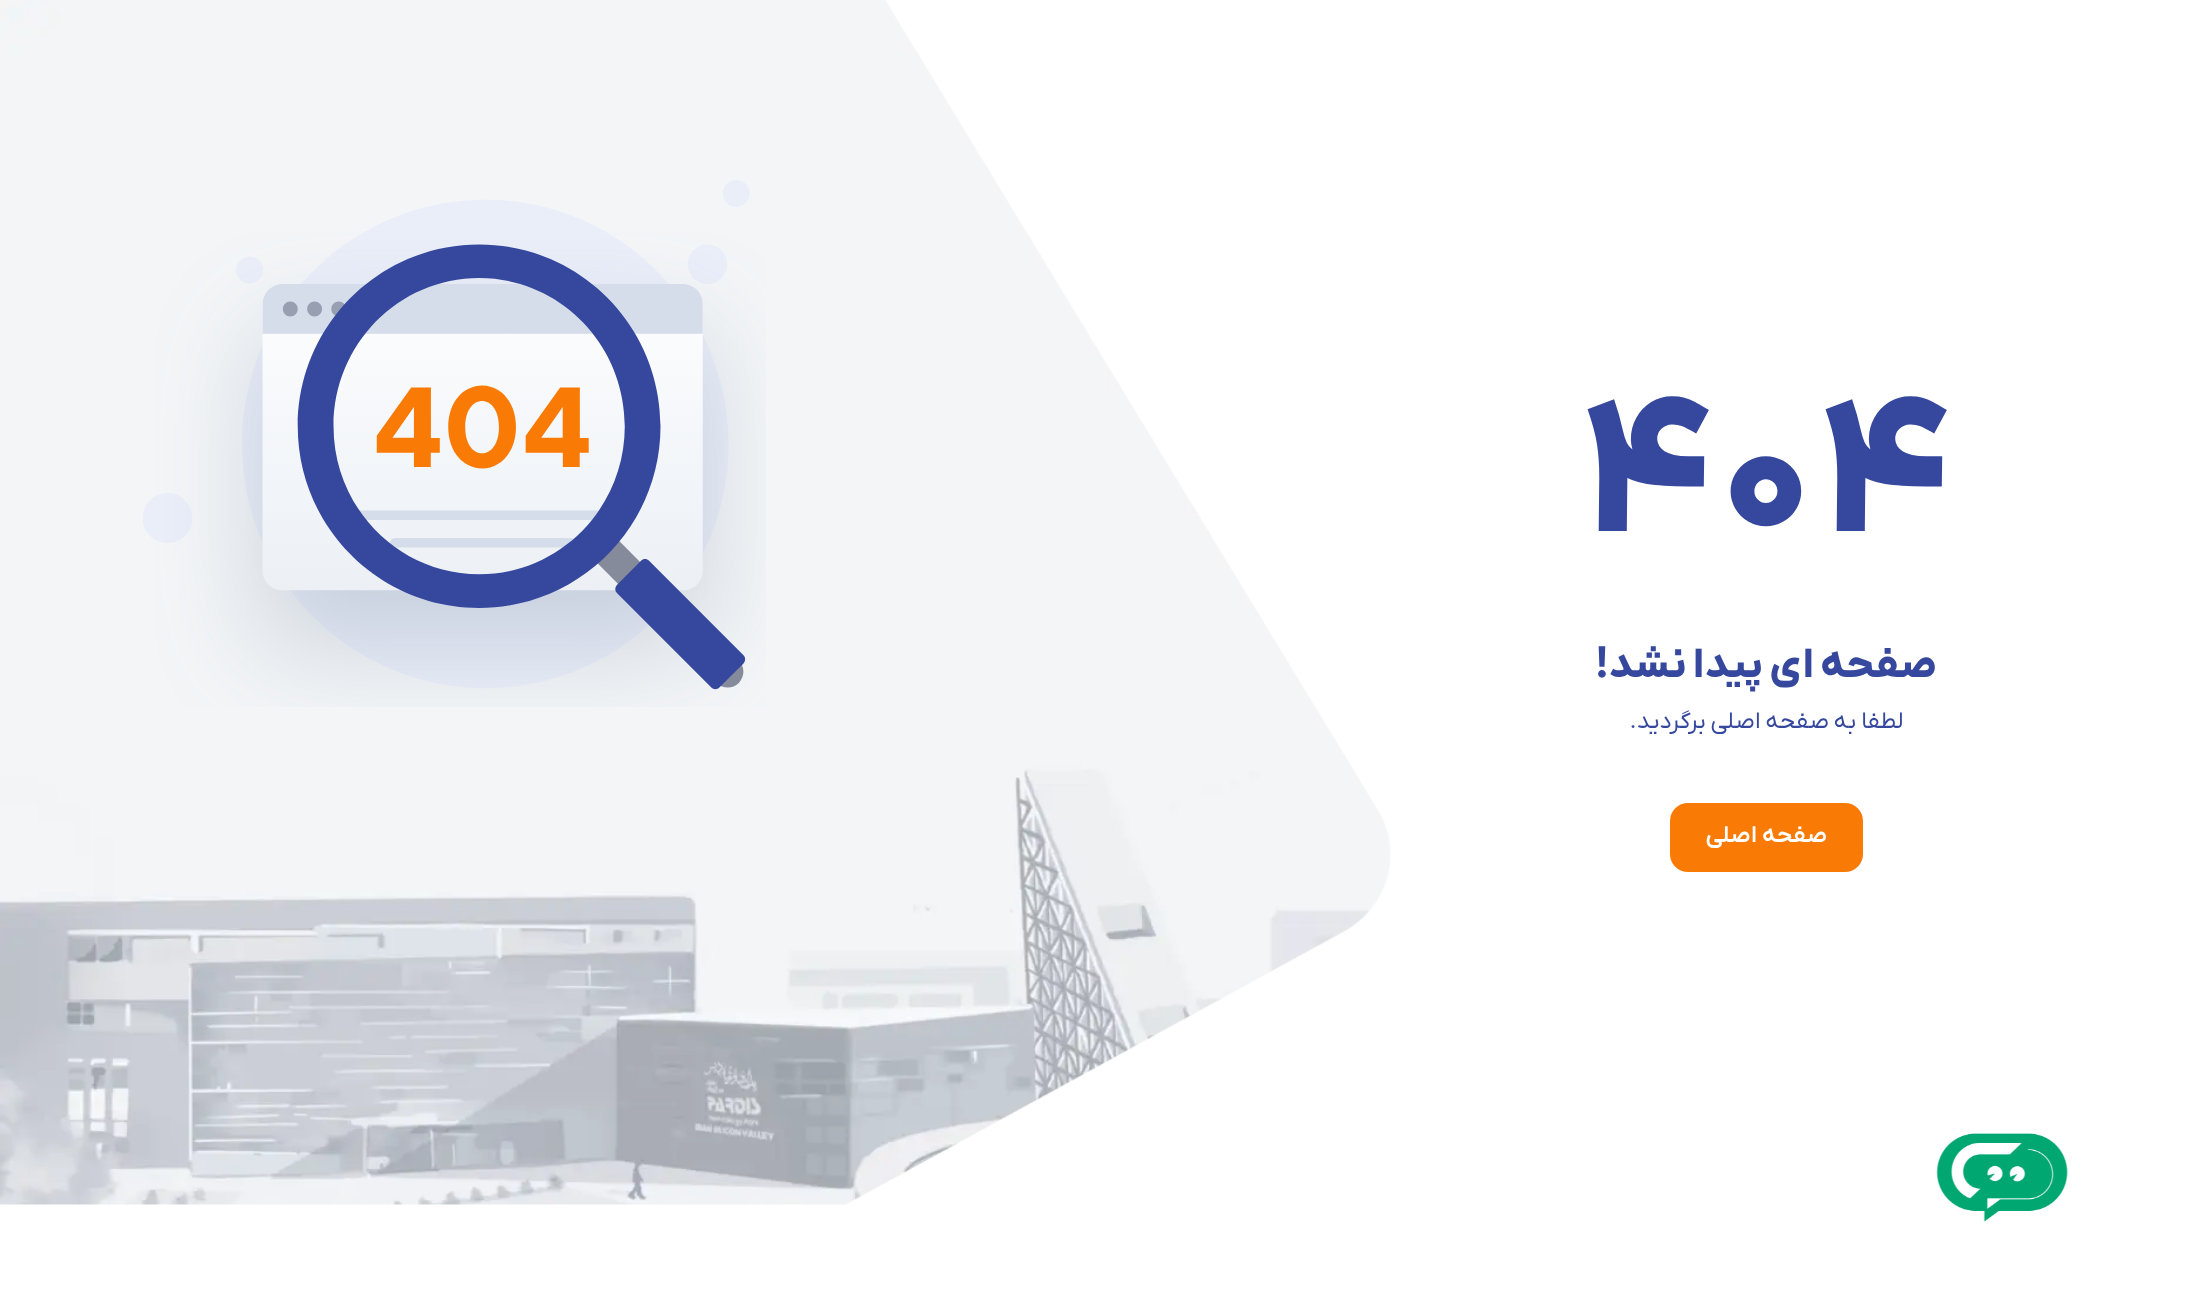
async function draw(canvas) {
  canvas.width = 2192;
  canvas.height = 1315;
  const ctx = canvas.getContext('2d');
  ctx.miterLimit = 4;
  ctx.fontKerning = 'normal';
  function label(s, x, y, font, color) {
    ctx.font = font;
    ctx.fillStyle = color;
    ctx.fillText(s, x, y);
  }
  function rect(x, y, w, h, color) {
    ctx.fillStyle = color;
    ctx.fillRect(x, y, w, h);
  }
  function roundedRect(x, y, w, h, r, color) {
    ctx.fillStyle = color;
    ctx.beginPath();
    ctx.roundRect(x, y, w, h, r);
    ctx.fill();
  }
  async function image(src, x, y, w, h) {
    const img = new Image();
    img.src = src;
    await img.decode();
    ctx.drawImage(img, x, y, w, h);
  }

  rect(0, 0, 2192, 1315, '#fff');
  label('404', 1579, 531, '800 195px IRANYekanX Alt', '#36489e');
  ctx.wordSpacing = '-1px';
  ctx.direction = 'rtl';
  label('صفحه ای پیدا نشد!', 1937, 677, '800 42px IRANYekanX', '#36489e');
  label('لطفا به صفحه اصلی برگردید.', 1903, 728, '24px IRANYekanX', '#36489e');
  roundedRect(1670, 803, 193, 69, 18, '#f97b06');
  ctx.wordSpacing = '0px';
  label('صفحه اصلی', 1827, 842, '600 24px IRANYekanX', '#fff');
  await image('assets/img1.png', 0, 0, 1391, 1205);
  await image('assets/img2.png', 143, 180, 623, 527);
  await image('assets/img3.png', 1936, 1133, 132, 89);
}

draw(document.querySelector('canvas'));
